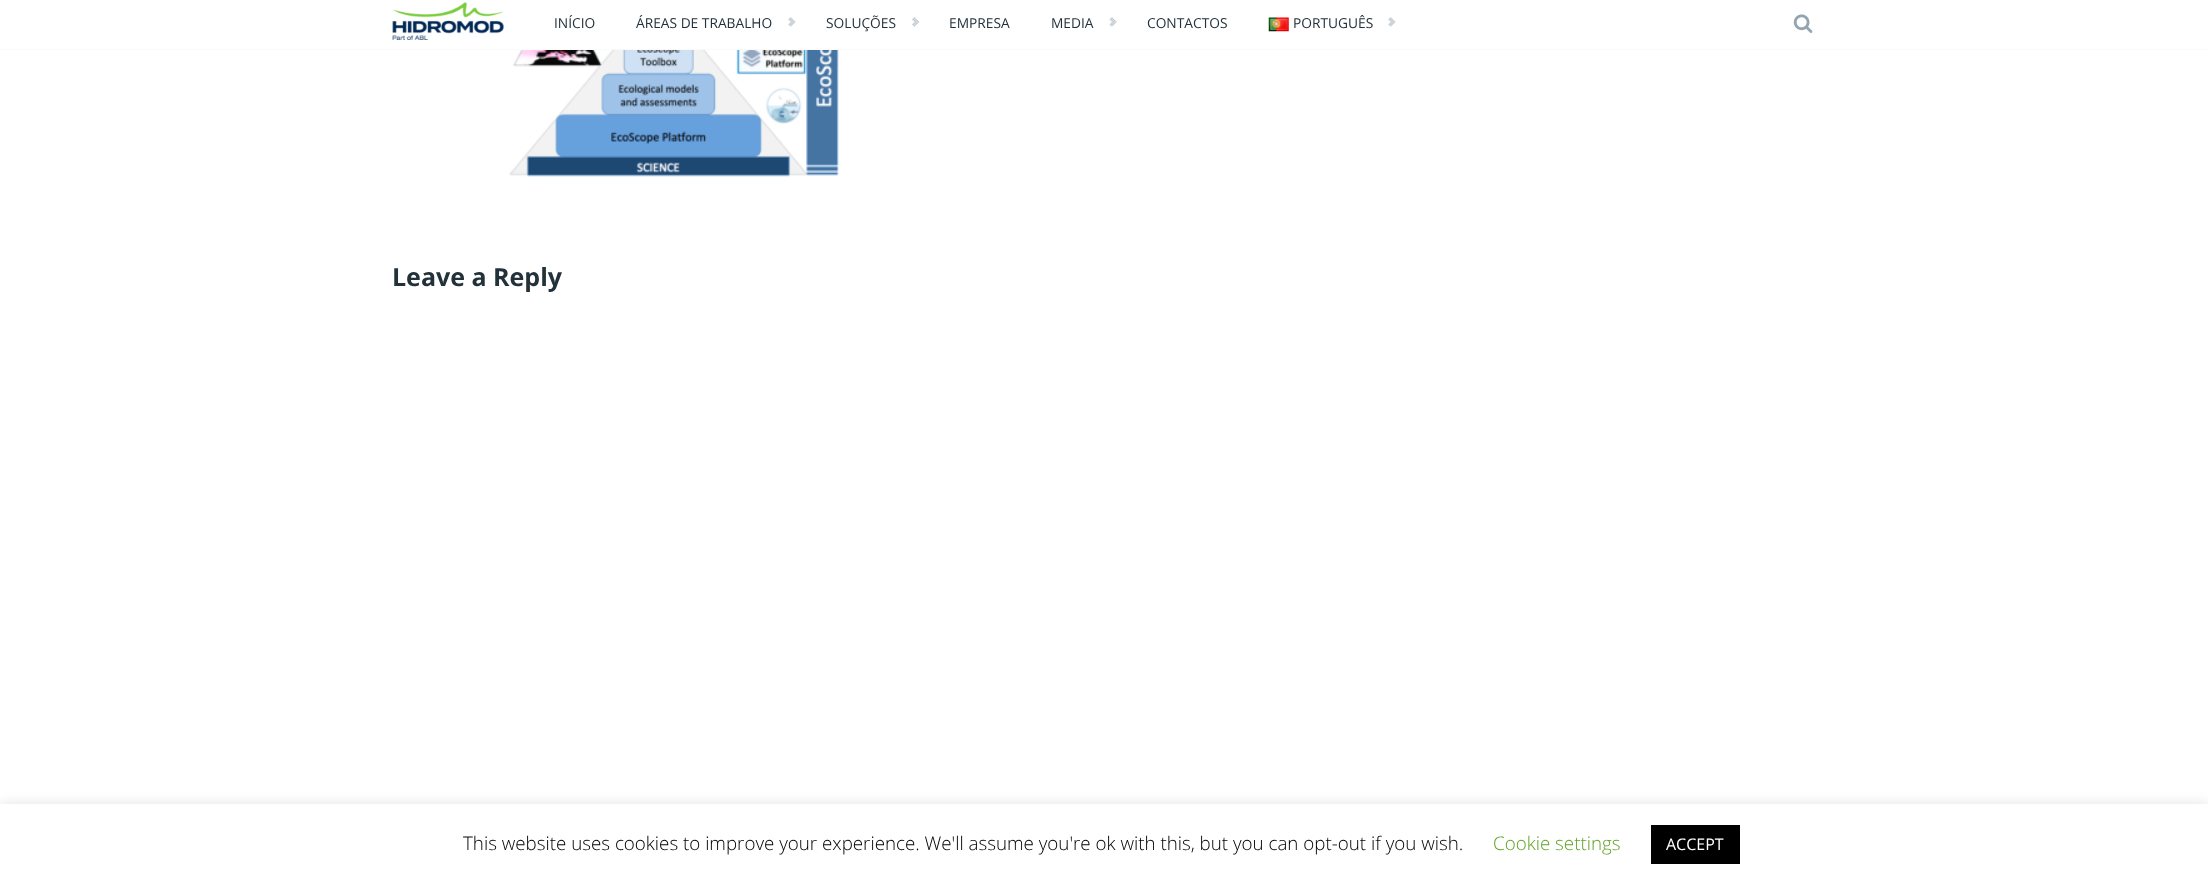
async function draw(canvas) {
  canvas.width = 2208;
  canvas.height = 885;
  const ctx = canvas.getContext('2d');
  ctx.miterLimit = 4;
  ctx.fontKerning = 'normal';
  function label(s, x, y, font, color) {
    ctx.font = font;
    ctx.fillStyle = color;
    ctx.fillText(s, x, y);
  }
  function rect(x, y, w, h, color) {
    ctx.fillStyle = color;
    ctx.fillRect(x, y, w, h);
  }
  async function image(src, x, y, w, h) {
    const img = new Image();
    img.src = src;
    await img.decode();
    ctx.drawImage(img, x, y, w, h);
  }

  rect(0, 0, 2208, 885, '#fff');
  rect(0, 49, 2208, 1, '#fafafa');
  await image('assets/img1.png', 392, 2, 112, 38);
  label('INÍCIO', 554, 28, '13.75px Open Sans', '#23323a');
  label('ÁREAS DE TRABALHO', 636, 28, '13.75px Open Sans', '#23323a');
  await image('assets/img2.png', 788, 17, 8, 10);
  label('SOLUÇÕES', 826, 28, '13.75px Open Sans', '#23323a');
  await image('assets/img3.png', 911, 17, 9, 10);
  label('EMPRESA', 949, 28, '13.75px Open Sans', '#23323a');
  label('MEDIA', 1051, 28, '13.75px Open Sans', '#23323a');
  await image('assets/img4.png', 1109, 17, 8, 10);
  label('CONTACTOS', 1147, 28, '13.75px Open Sans', '#23323a');
  await image('assets/img5.png', 1268, 17, 21, 15);
  label('PORTUGUÊS', 1293, 28, '13.75px Open Sans', '#23323a');
  await image('assets/img2.png', 1388, 17, 8, 10);
  await image('assets/img6.png', 1793, 14, 20, 19);
  await image('assets/img7.png', 509, 50, 330, 127);
  label('Leave a Reply', 392, 286, 'bold 25px Open Sans', '#23323a');
  ctx.fillStyle = '#acabab4d';
  ctx.filter = 'blur(6px)';
  ctx.beginPath();
  ctx.rect(0, 803, 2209, 81);
  ctx.fill();
  ctx.filter = 'none';
  rect(0, 804, 2208, 81, '#fff');
  label('This website uses cookies to improve your experience. We\'ll assume you\'re ok with this, but you can opt-out if you wish.', 463, 850, '300 18.75px Open Sans', '#000');
  label('Cookie settings', 1493, 850, '300 18.75px Open Sans', '#62a329');
  rect(1651, 825, 89, 39, '#000');
  label('ACCEPT', 1666, 850, '16px Open Sans', '#fff');
}

draw(document.querySelector('canvas'));
